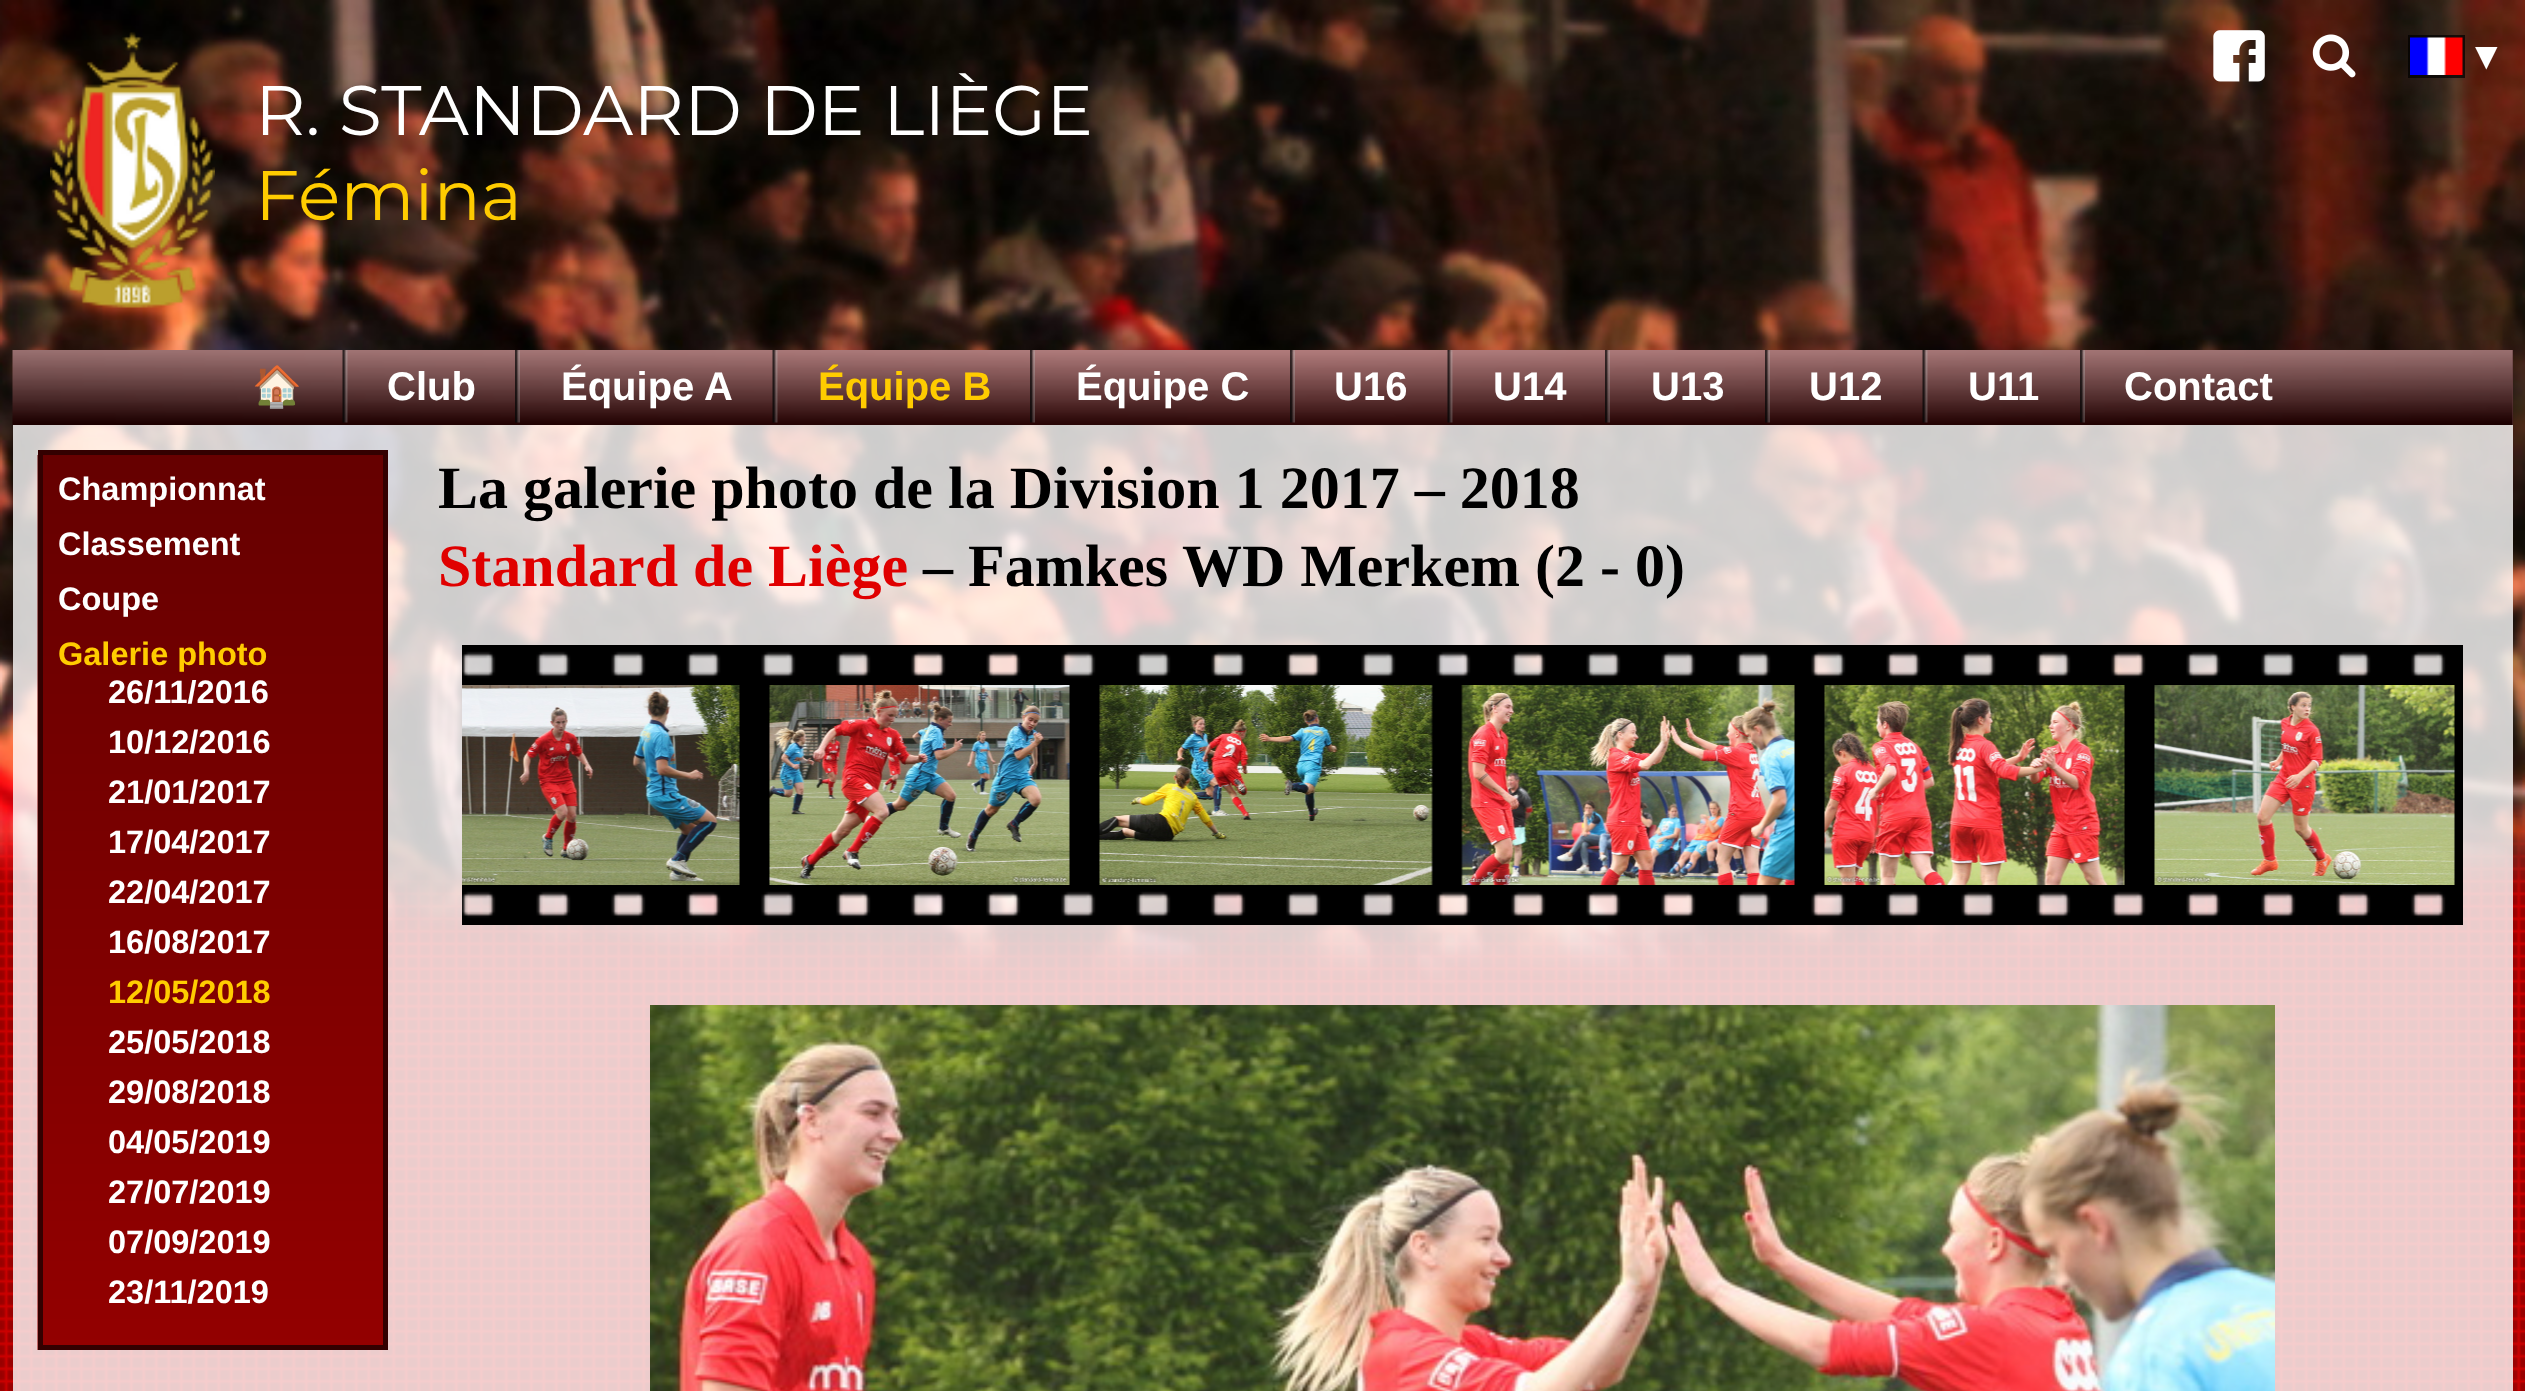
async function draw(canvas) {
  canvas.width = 2525;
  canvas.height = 1391;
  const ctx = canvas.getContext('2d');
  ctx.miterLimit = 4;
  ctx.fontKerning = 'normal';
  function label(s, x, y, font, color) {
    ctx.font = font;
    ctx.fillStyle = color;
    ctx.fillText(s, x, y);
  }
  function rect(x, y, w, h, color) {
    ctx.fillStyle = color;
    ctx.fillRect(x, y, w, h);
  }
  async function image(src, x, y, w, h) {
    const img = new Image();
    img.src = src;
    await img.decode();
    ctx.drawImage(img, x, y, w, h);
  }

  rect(0, 0, 2525, 1391, '#900');
  await image('assets/img1.png', 0, 785, 2525, 606);
  await image('assets/img2.png', 0, 0, 2525, 985);
  await image('assets/img3.png', 2213, 30, 52, 52);
  await image('assets/img4.png', 2312, 34, 44, 44);
  ctx.strokeStyle = '#000000b3';
  ctx.lineWidth = 3;
  ctx.strokeRect(2409.5, 36.5, 54, 40);
  await image('assets/img5.png', 2410, 37, 53, 38);
  label('▾', 2475, 70, '45px DejaVu Sans', '#fff');
  await image('assets/img6.png', 50, 32, 165, 276);
  label('R. STANDARD DE LIÈGE', 255, 135, '70px Montserrat', '#fff');
  label('Fémina', 255, 220, '70px Montserrat', '#fc0');
  rect(2512, 350, 1, 75, '#603d3d');
  await image('assets/img7.png', 12, 350, 2501, 75);
  await image('assets/img8.png', 342, 350, 6, 73);
  label('🏠', 252, 400, 'bold 40px Noto Color Emoji', '#fff');
  await image('assets/img9.png', 515, 350, 5, 73);
  label('Club', 387, 400, 'bold 40px Liberation Sans', '#fff');
  await image('assets/img10.png', 772, 350, 6, 73);
  label('Équipe A', 561, 400, 'bold 40px Liberation Sans', '#fff');
  await image('assets/img11.png', 1030, 350, 5, 73);
  label('Équipe B', 818, 400, 'bold 40px Liberation Sans', '#fc0');
  await image('assets/img12.png', 1290, 350, 5, 73);
  label('Équipe C', 1076, 400, 'bold 40px Liberation Sans', '#fff');
  await image('assets/img13.png', 1447, 350, 6, 73);
  label('U16', 1334, 400, 'bold 40px Liberation Sans', '#fff');
  await image('assets/img14.png', 1605, 350, 5, 73);
  label('U14', 1493, 400, 'bold 40px Liberation Sans', '#fff');
  await image('assets/img15.png', 1765, 350, 5, 73);
  label('U13', 1651, 400, 'bold 40px Liberation Sans', '#fff');
  await image('assets/img16.png', 1922, 350, 6, 73);
  label('U12', 1809, 400, 'bold 40px Liberation Sans', '#fff');
  await image('assets/img17.png', 2080, 350, 5, 73);
  label('U11', 1968, 400, 'bold 40px Liberation Sans', '#fff');
  label('Contact', 2124, 400, 'bold 40px Liberation Sans', '#fff');
  rect(13, 425, 2500, 966, '#ffffffcc');
  await image('assets/img18.png', 37, 455, 346, 895);
  ctx.strokeStyle = '#300';
  ctx.lineWidth = 5;
  ctx.strokeRect(40.5, 452.5, 345, 895);
  label('Championnat', 58, 500, 'bold 32.5px Liberation Sans', '#fff');
  label('Classement', 58, 555, 'bold 32.5px Liberation Sans', '#fff');
  label('Coupe', 58, 610, 'bold 32.5px Liberation Sans', '#fff');
  label('Galerie photo', 58, 665, 'bold 32.5px Liberation Sans', '#fc0');
  ctx.save();
  ctx.beginPath();
  ctx.rect(58, 680, 310, 650);
  ctx.clip();
  label('26/11/2016', 108, 703, 'bold 32.5px Liberation Sans', '#fff');
  ctx.restore();
  label('10/12/2016', 108, 753, 'bold 32.5px Liberation Sans', '#fff');
  label('21/01/2017', 108, 803, 'bold 32.5px Liberation Sans', '#fff');
  label('17/04/2017', 108, 853, 'bold 32.5px Liberation Sans', '#fff');
  label('22/04/2017', 108, 903, 'bold 32.5px Liberation Sans', '#fff');
  label('16/08/2017', 108, 953, 'bold 32.5px Liberation Sans', '#fff');
  label('12/05/2018', 108, 1003, 'bold 32.5px Liberation Sans', '#fc0');
  label('25/05/2018', 108, 1053, 'bold 32.5px Liberation Sans', '#fff');
  label('29/08/2018', 108, 1103, 'bold 32.5px Liberation Sans', '#fff');
  label('04/05/2019', 108, 1153, 'bold 32.5px Liberation Sans', '#fff');
  label('27/07/2019', 108, 1203, 'bold 32.5px Liberation Sans', '#fff');
  label('07/09/2019', 108, 1253, 'bold 32.5px Liberation Sans', '#fff');
  label('23/11/2019', 108, 1303, 'bold 32.5px Liberation Sans', '#fff');
  label('La galerie photo de la Division 1 2017 – 2018', 438, 508, 'bold 60px Liberation Serif', '#000');
  label('Standard de Liège', 438, 586, 'bold 60px Liberation Serif', '#e00000');
  label('– Famkes WD Merkem (2 - 0)', 923, 586, 'bold 60px Liberation Serif', '#000');
  await image('assets/img19.png', 462, 645, 2001, 280);
  await image('assets/img20.png', 462, 685, 278, 200);
  await image('assets/img21.png', 769, 685, 301, 200);
  await image('assets/img22.png', 1099, 685, 334, 200);
  await image('assets/img23.png', 1461, 685, 334, 200);
  await image('assets/img24.png', 1824, 685, 301, 200);
  await image('assets/img25.png', 2154, 685, 301, 200);
  await image('assets/img26.png', 650, 1005, 1625, 386);
}

draw(document.querySelector('canvas'));
